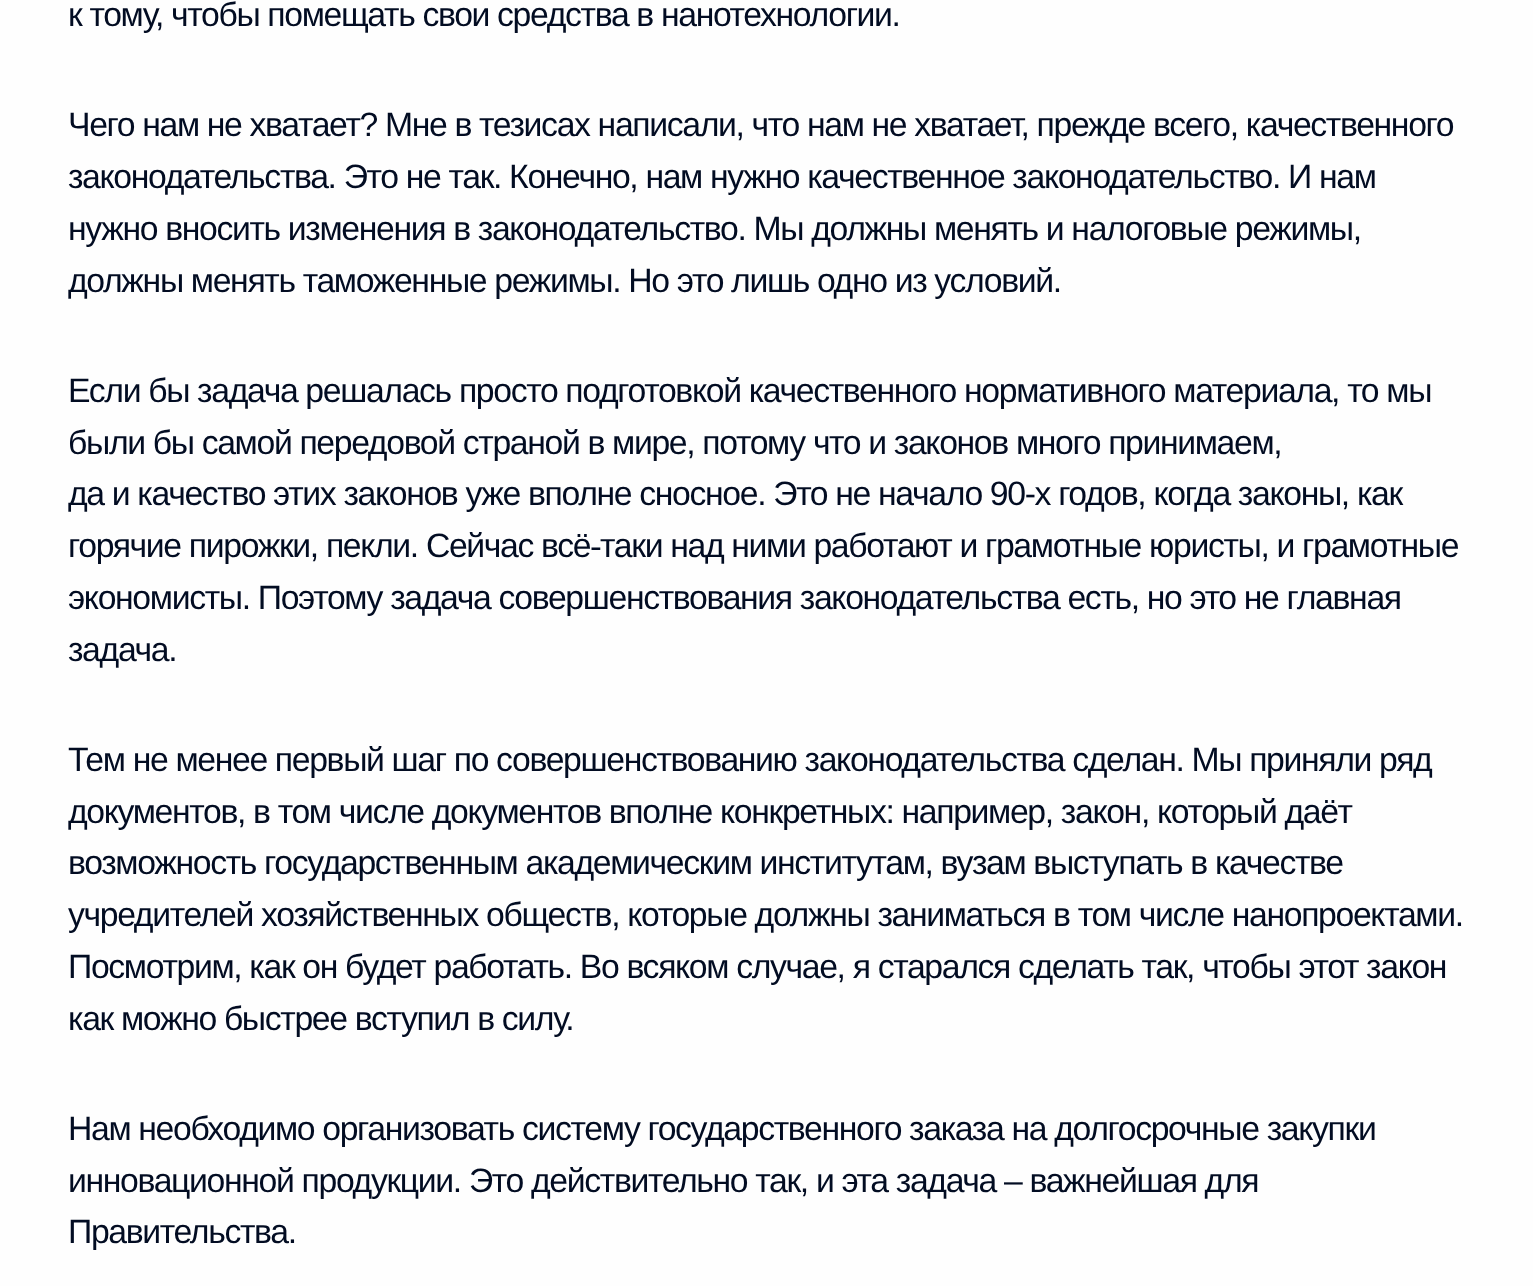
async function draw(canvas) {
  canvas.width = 1533;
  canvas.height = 1286;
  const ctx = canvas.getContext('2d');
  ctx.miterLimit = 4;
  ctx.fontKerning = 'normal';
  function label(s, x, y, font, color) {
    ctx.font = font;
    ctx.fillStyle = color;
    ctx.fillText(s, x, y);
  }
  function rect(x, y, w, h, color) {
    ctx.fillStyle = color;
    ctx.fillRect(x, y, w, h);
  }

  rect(0, 0, 1533, 1286, '#fefefe');
  ctx.letterSpacing = '-1.35px';
  label('к тому, чтобы помещать свои средства в нанотехнологии.', 68, 26, '33.75px Liberation Sans', '#020c22');
  label('Чего нам не хватает? Мне в тезисах написали, что нам не хватает, прежде всего, качественного', 68, 136, '33.75px Liberation Sans', '#020c22');
  label('законодательства. Это не так. Конечно, нам нужно качественное законодательство. И нам', 68, 188, '33.75px Liberation Sans', '#020c22');
  label('нужно вносить изменения в законодательство. Мы должны менять и налоговые режимы,', 68, 240, '33.75px Liberation Sans', '#020c22');
  label('должны менять таможенные режимы. Но это лишь одно из условий.', 68, 292, '33.75px Liberation Sans', '#020c22');
  label('Если бы задача решалась просто подготовкой качественного нормативного материала, то мы', 68, 402, '33.75px Liberation Sans', '#020c22');
  label('были бы самой передовой страной в мире, потому что и законов много принимаем,', 68, 454, '33.75px Liberation Sans', '#020c22');
  label('да и качество этих законов уже вполне сносное. Это не начало 90-х годов, когда законы, как', 68, 505, '33.75px Liberation Sans', '#020c22');
  label('горячие пирожки, пекли. Сейчас всё‑таки над ними работают и грамотные юристы, и грамотные', 68, 557, '33.75px Liberation Sans', '#020c22');
  label('экономисты. Поэтому задача совершенствования законодательства есть, но это не главная', 68, 609, '33.75px Liberation Sans', '#020c22');
  label('задача.', 68, 661, '33.75px Liberation Sans', '#020c22');
  label('Тем не менее первый шаг по совершенствованию законодательства сделан. Мы приняли ряд', 68, 771, '33.75px Liberation Sans', '#020c22');
  label('документов, в том числе документов вполне конкретных: например, закон, который даёт', 68, 823, '33.75px Liberation Sans', '#020c22');
  label('возможность государственным академическим институтам, вузам выступать в качестве', 68, 874, '33.75px Liberation Sans', '#020c22');
  label('учредителей хозяйственных обществ, которые должны заниматься в том числе нанопроектами.', 68, 926, '33.75px Liberation Sans', '#020c22');
  label('Посмотрим, как он будет работать. Во всяком случае, я старался сделать так, чтобы этот закон', 68, 978, '33.75px Liberation Sans', '#020c22');
  label('как можно быстрее вступил в силу.', 68, 1030, '33.75px Liberation Sans', '#020c22');
  label('Нам необходимо организовать систему государственного заказа на долгосрочные закупки', 68, 1140, '33.75px Liberation Sans', '#020c22');
  label('инновационной продукции. Это действительно так, и эта задача – важнейшая для', 68, 1192, '33.75px Liberation Sans', '#020c22');
  label('Правительства.', 68, 1243, '33.75px Liberation Sans', '#020c22');
}

draw(document.querySelector('canvas'));
